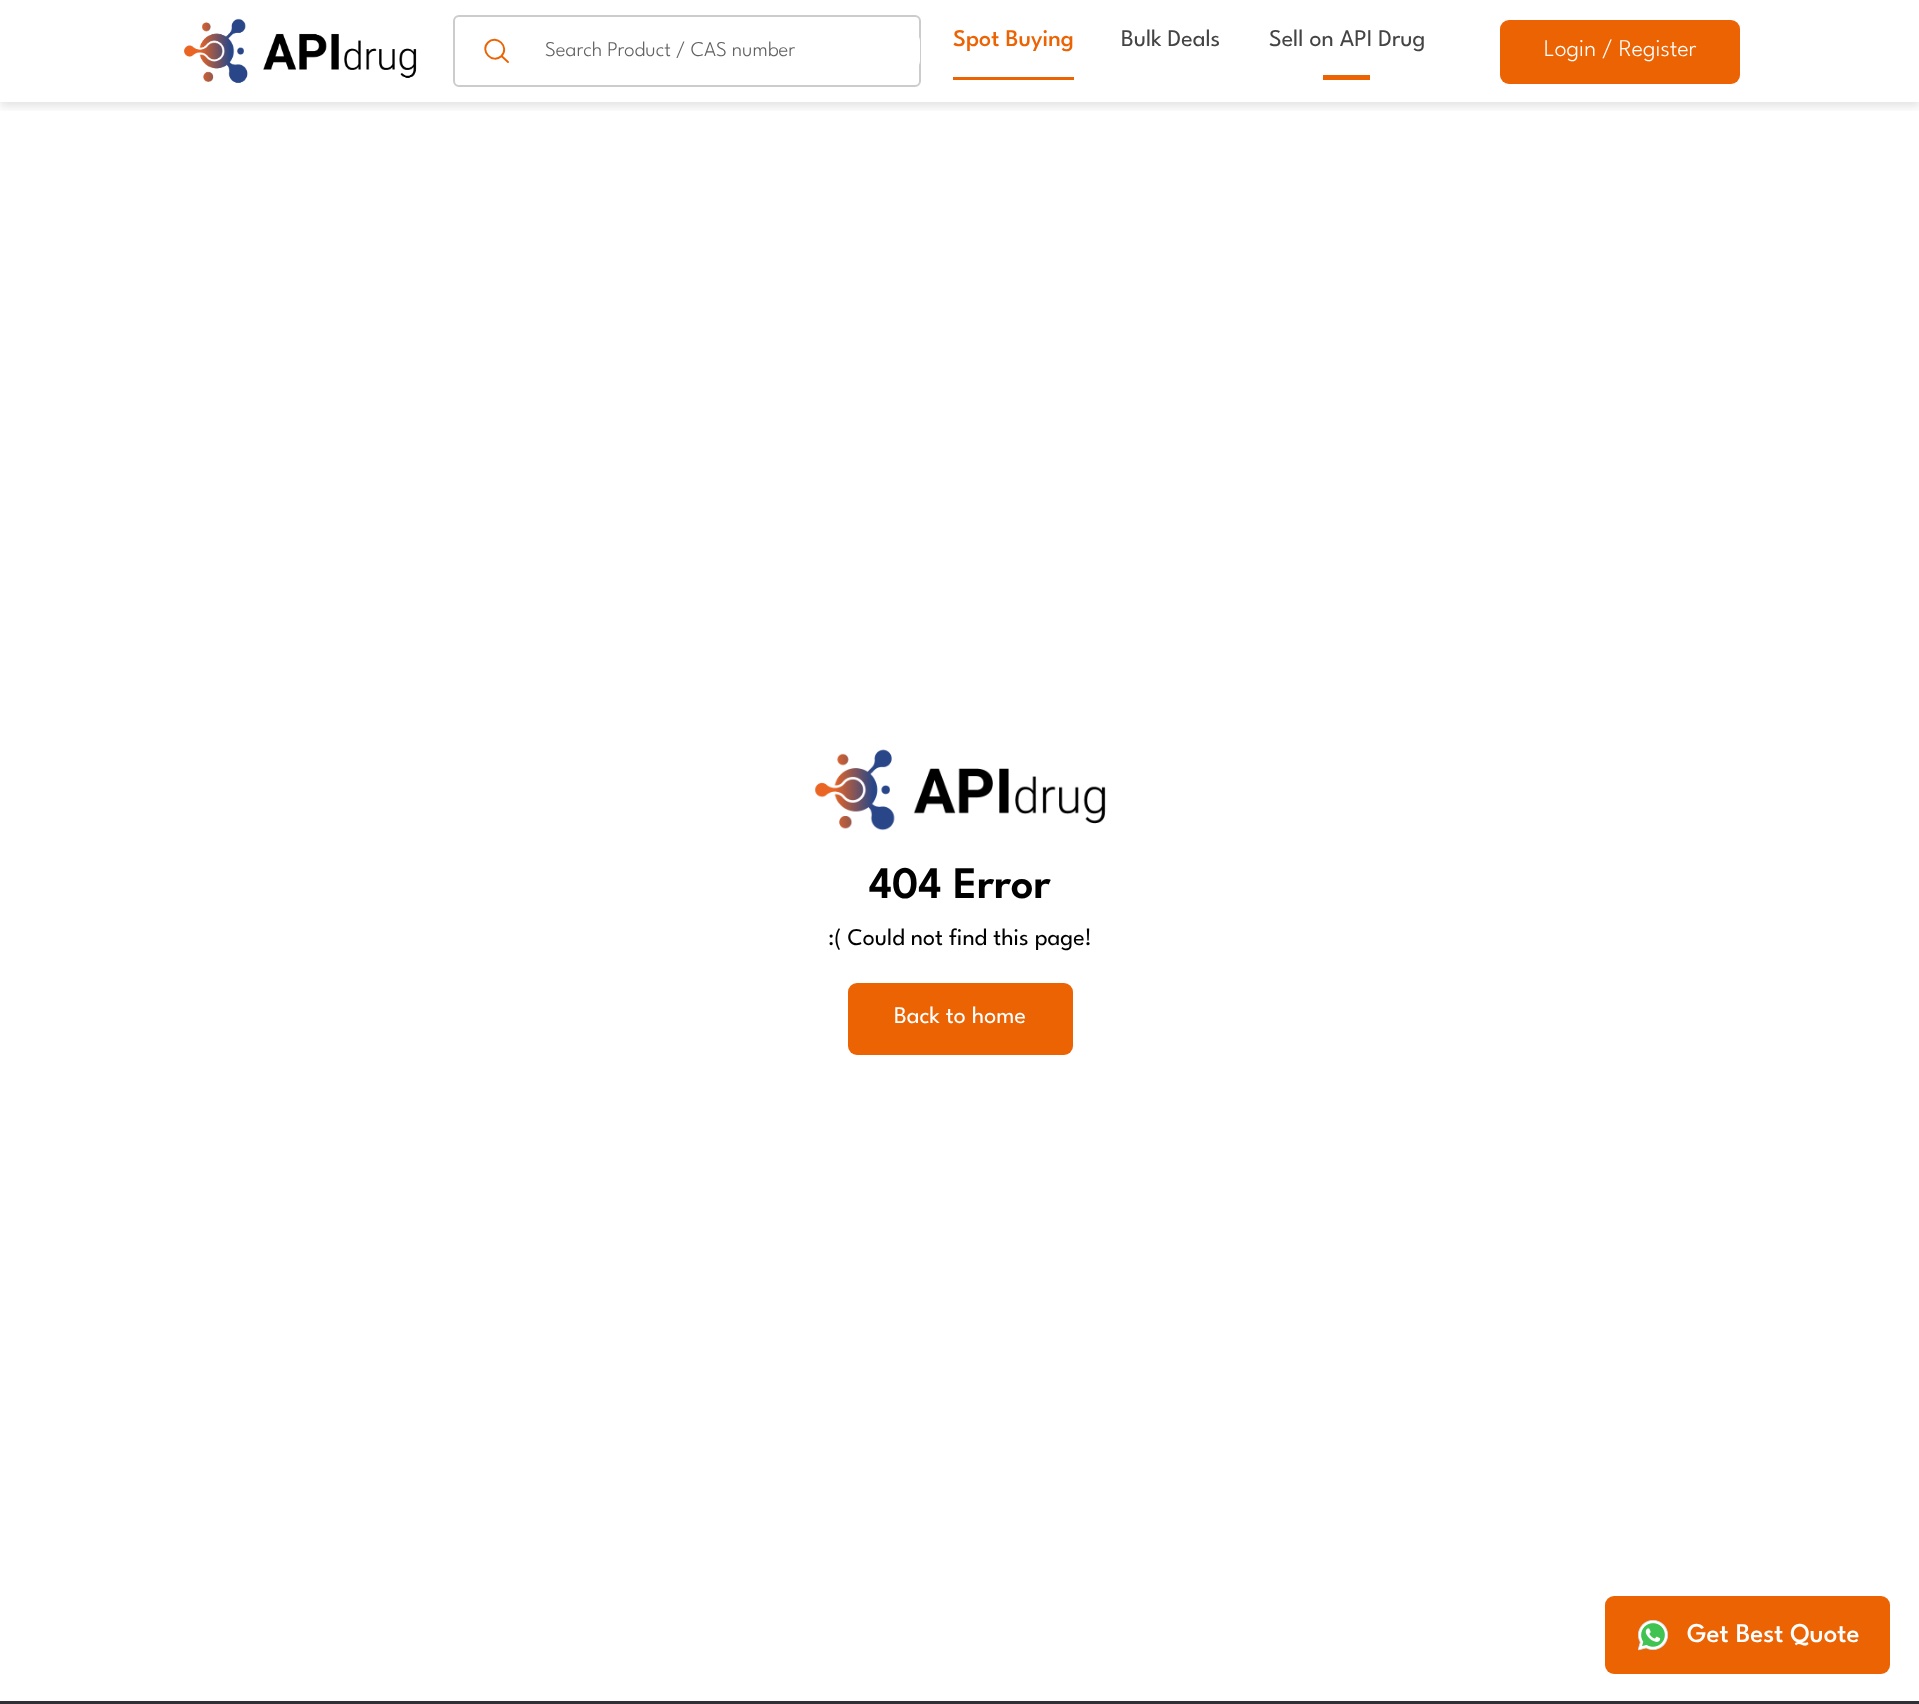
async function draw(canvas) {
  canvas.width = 1919;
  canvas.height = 1704;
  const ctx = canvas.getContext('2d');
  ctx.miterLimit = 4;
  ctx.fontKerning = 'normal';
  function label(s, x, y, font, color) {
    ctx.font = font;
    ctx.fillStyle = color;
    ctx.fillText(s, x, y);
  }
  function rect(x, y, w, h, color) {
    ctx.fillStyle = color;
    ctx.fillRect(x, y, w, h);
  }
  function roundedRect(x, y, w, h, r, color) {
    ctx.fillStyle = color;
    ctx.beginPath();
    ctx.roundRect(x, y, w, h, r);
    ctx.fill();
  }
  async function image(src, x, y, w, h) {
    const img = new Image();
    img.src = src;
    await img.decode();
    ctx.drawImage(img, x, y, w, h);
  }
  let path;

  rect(0, 0, 1919, 1704, '#fff');
  ctx.save();
  ctx.beginPath();
  ctx.rect(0, 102, 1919, 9);
  ctx.clip();
  ctx.fillStyle = '#0000001a';
  ctx.filter = 'blur(4.5px)';
  ctx.beginPath();
  ctx.rect(0, 5, 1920, 102);
  ctx.fill();
  ctx.filter = 'none';
  ctx.restore();
  await image('assets/img1.png', 184, 18, 233, 65);
  ctx.beginPath();
  ctx.roundRect(454, 16, 466, 70, 5);
  ctx.strokeStyle = '#ccc';
  ctx.lineWidth = 2;
  ctx.stroke();
  path = new Path2D('M508 62L501.5 56M501.5 56C510 47 496.5 34 488 42.5C479.5 51 492.5 64.5 501.5 56Z');
  ctx.strokeStyle = '#ec6303';
  ctx.lineWidth = 1.9;
  ctx.lineCap = 'round';
  ctx.lineJoin = 'round';
  ctx.stroke(path);
  roundedRect(531, 33, 389, 36, 8, '#fff');
  label('Search Product / CAS number', 545, 56, '300 21px League Spartan', '#616161');
  rect(953, 77, 121, 3, '#ec6303');
  label('Spot Buying', 953, 46, '500 24px League Spartan', '#ec6303');
  label('Bulk Deals', 1121, 46, '24px League Spartan', '#444');
  label('Sell on API Drug', 1269, 46, '24px League Spartan', '#444');
  rect(1323, 75, 47, 5, '#ec6303');
  roundedRect(1500, 20, 240, 64, 9, '#ec6303');
  label('Login / Register', 1544, 56, '300 24px League Spartan', '#fff');
  await image('assets/img2.png', 815, 749, 291, 82);
  label('404 Error', 869, 898, '600 45px League Spartan', '#000');
  label(':( Could not find this page!', 828, 945, '24px League Spartan', '#000');
  roundedRect(848, 983, 225, 72, 9, '#ec6303');
  label('Back to home', 894, 1023, '24px League Spartan', '#fff');
  roundedRect(1605, 1596, 285, 78, 9, '#ec6303');
  await image('assets/img3.png', 1637, 1620, 32, 31);
  label('Get Best Quote', 1687, 1642, '500 27px League Spartan', '#fff');
  rect(0, 1701, 1919, 3, '#313037');
}

draw(document.querySelector('canvas'));
